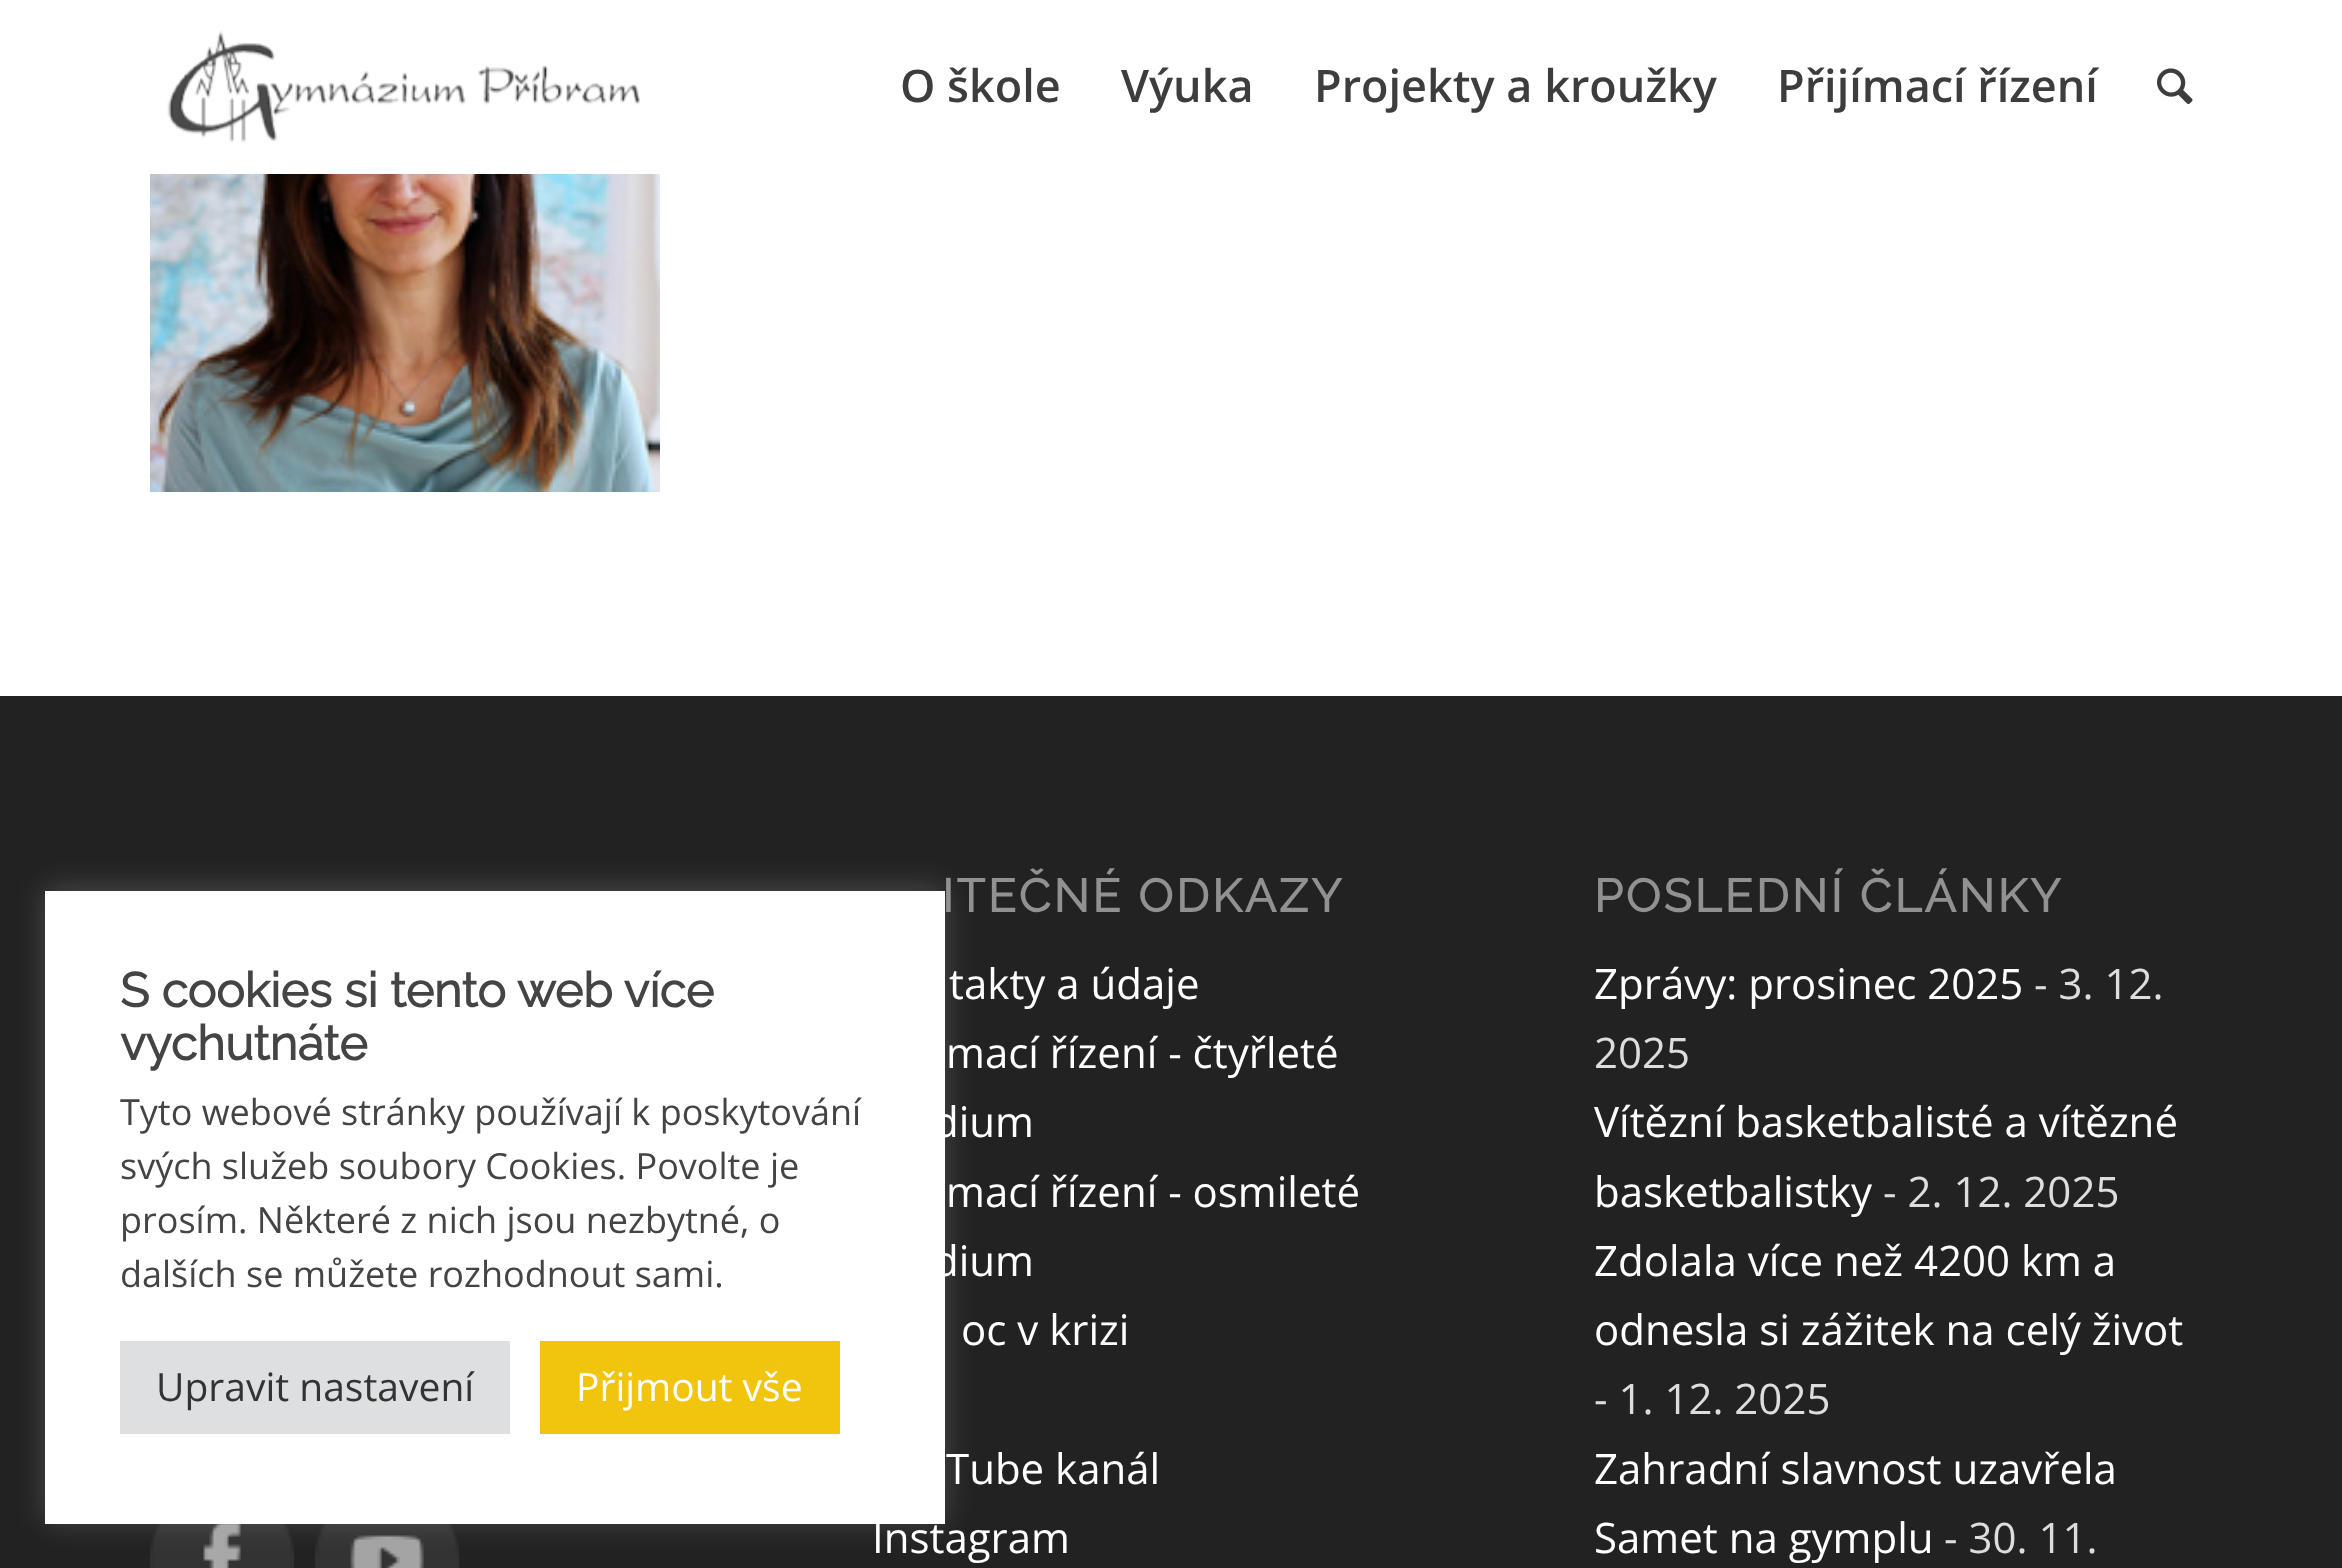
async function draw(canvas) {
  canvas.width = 2342;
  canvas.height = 1568;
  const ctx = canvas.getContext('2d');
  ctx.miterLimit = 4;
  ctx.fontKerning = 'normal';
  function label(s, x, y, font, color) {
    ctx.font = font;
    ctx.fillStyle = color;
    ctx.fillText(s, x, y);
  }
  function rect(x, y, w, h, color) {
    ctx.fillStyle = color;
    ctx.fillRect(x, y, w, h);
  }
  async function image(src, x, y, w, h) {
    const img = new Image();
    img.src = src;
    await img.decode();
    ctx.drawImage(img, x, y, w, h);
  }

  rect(0, 0, 2342, 1568, '#fff');
  rect(0, 696, 2342, 872, '#222');
  await image('assets/img4.png', 150, 1524, 144, 44);
  await image('assets/img5.png', 315, 1524, 144, 44);
  ctx.fillStyle = '#acabab4d';
  ctx.filter = 'blur(15px)';
  ctx.beginPath();
  ctx.rect(45, 888, 900, 633);
  ctx.fill();
  ctx.filter = 'none';
  rect(45, 891, 900, 633, '#fff');
  label('S cookies si tento web více', 120, 1007, 'bold 48px Raleway', '#444');
  label('vychutnáte', 120, 1060, 'bold 48px Raleway', '#444');
  label('Tyto webové stránky používají k poskytování', 120, 1125, '36px Open Sans', '#444');
  label('svých služeb soubory Cookies. Povolte je', 120, 1179, '36px Open Sans', '#444');
  label('prosím. Některé z nich jsou nezbytné, o', 120, 1233, '36px Open Sans', '#444');
  label('dalších se můžete rozhodnout sami.', 120, 1287, '36px Open Sans', '#444');
  rect(120, 1341, 390, 93, '#dedfe0');
  label('Upravit nastavení', 156, 1401, '39px Open Sans', '#333');
  rect(540, 1341, 300, 93, '#f1c40e');
  label('Přijmout vše', 576, 1401, '39px Open Sans', '#fff');
  await image('assets/img1.png', 167, 30, 473, 113);
  label('O škole', 900, 102, '600 45px Open Sans', '#3d3d3d');
  label('Výuka', 1121, 102, '600 45px Open Sans', '#3d3d3d');
  label('Projekty a kroužky', 1314, 102, '600 45px Open Sans', '#3d3d3d');
  label('Přijímací řízení', 1777, 102, '600 45px Open Sans', '#3d3d3d');
  await image('assets/img2.png', 2157, 68, 36, 36);
  await image('assets/img3.png', 150, 174, 510, 318);
  ctx.letterSpacing = '3px';
  label('ITEČNÉ ODKAZY', 942, 912, 'bold 46.25px Raleway', '#919191');
  ctx.letterSpacing = '0px';
  label('takty a údaje', 949, 999, '42px Open Sans', '#fff');
  label('mací řízení - čtyřleté', 946, 1068, '42px Open Sans', '#fff');
  label('dium', 933, 1137, '42px Open Sans', '#fff');
  label('mací řízení - osmileté', 946, 1207, '42px Open Sans', '#fff');
  label('dium', 933, 1276, '42px Open Sans', '#fff');
  label('oc v krizi', 961, 1345, '42px Open Sans', '#fff');
  label('Tube kanál', 946, 1484, '42px Open Sans', '#fff');
  label('Instagram', 872, 1553, '42px Open Sans', '#fff');
  ctx.letterSpacing = '3px';
  label('POSLEDNÍ ČLÁNKY', 1594, 912, 'bold 46.25px Raleway', '#919191');
  ctx.letterSpacing = '0px';
  label('Zprávy: prosinec 2025', 1594, 999, '42px Open Sans', '#fff');
  label('- 3. 12.', 2034, 999, '42px Open Sans', '#ddd');
  label('2025', 1594, 1068, '42px Open Sans', '#ddd');
  label('Vítězní basketbalisté a vítězné', 1594, 1137, '42px Open Sans', '#fff');
  label('basketbalistky', 1594, 1207, '42px Open Sans', '#fff');
  label('- 2. 12. 2025', 1883, 1207, '42px Open Sans', '#ddd');
  label('Zdolala více než 4200 km a', 1594, 1276, '42px Open Sans', '#fff');
  label('odnesla si zážitek na celý život', 1594, 1345, '42px Open Sans', '#fff');
  label('- 1. 12. 2025', 1594, 1414, '42px Open Sans', '#ddd');
  label('Zahradní slavnost uzavřela', 1594, 1484, '42px Open Sans', '#fff');
  label('Samet na gymplu', 1594, 1553, '42px Open Sans', '#fff');
  label('- 30. 11.', 1944, 1553, '42px Open Sans', '#ddd');
}

draw(document.querySelector('canvas'));
